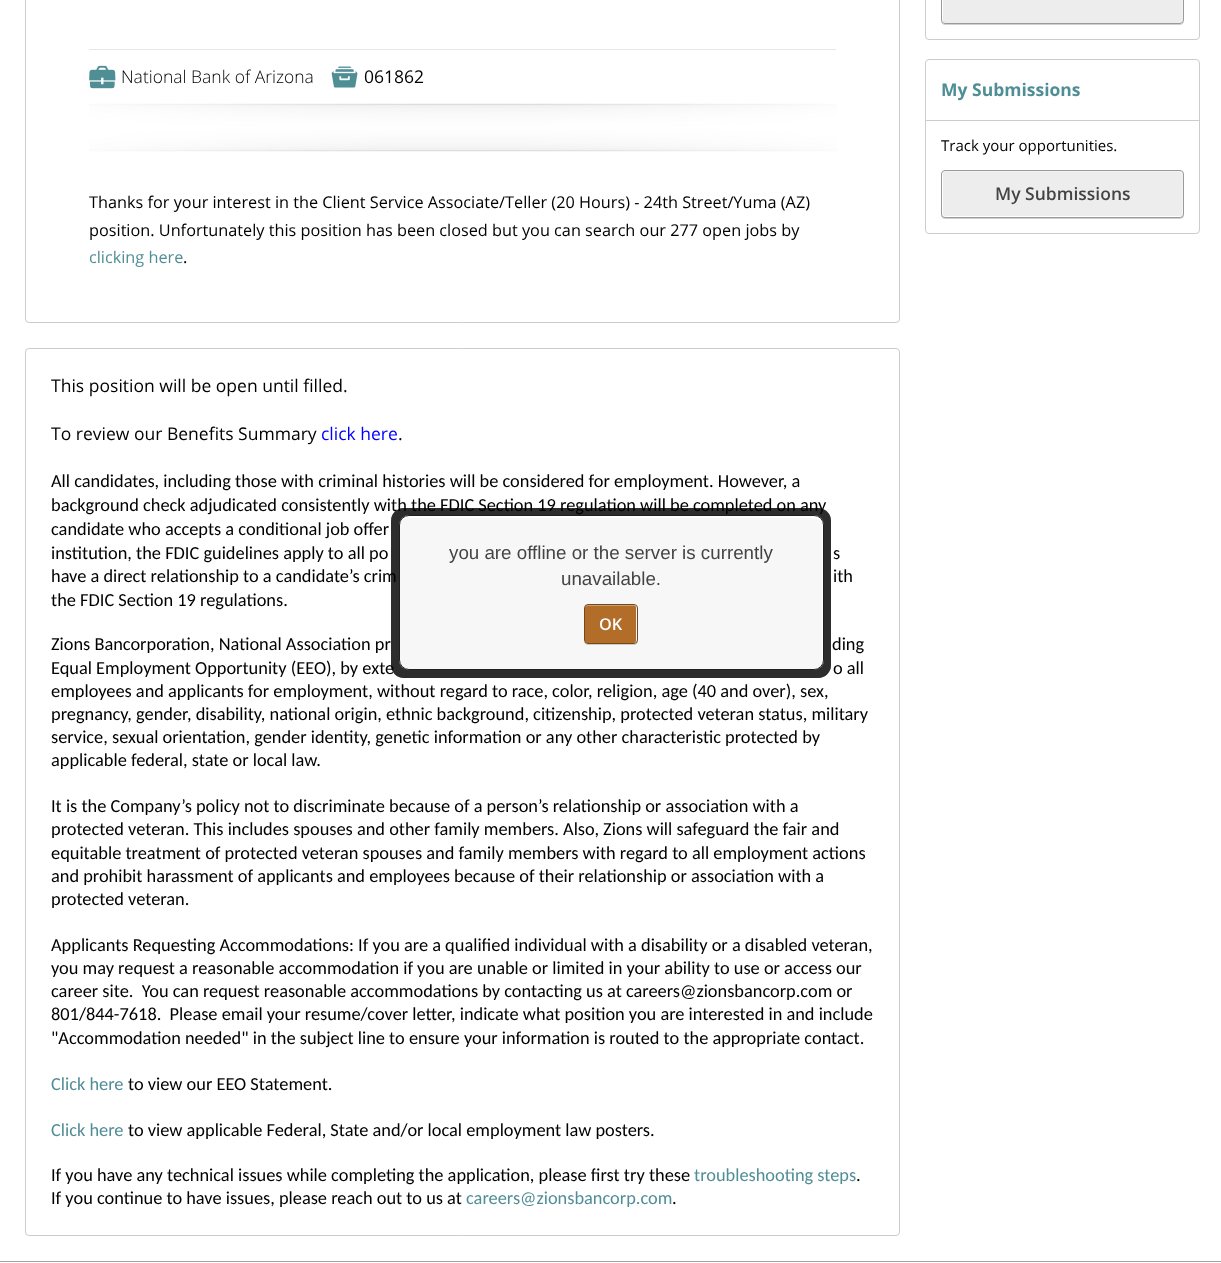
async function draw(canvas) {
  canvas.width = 1221;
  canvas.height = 1263;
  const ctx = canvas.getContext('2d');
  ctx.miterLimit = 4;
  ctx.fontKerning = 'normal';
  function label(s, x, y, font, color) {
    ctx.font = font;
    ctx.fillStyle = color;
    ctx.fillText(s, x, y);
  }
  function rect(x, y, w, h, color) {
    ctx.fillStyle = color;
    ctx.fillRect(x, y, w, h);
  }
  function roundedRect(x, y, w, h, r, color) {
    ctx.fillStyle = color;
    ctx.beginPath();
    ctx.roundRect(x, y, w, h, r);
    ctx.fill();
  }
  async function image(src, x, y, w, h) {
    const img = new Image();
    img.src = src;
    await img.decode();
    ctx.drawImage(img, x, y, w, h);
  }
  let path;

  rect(0, 0, 1221, 1263, '#fff');
  ctx.beginPath();
  ctx.roundRect(25.5, -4.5, 874, 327, 3.5);
  ctx.strokeStyle = '#ccc';
  ctx.stroke();
  rect(89, 49, 747, 1, '#e6e6e6');
  await image('assets/img1.png', 89, 65, 27, 24);
  label('National Bank of Arizona', 121, 83, '300 17.5px Open Sans', '#000');
  await image('assets/img2.png', 331, 66, 27, 22);
  label('061862', 364, 83, '17.5px Open Sans', '#000');
  await image('assets/img3.png', 89, 103, 748, 49);
  label('Thanks for your interest in the Client Service Associate/Teller (20 Hours) - 24th Street/Yuma (AZ)', 89, 208, '16.25px Open Sans', '#000');
  label('position. Unfortunately this position has been closed but you can search our 277 open jobs by', 89, 236, '16.25px Open Sans', '#000');
  label('clicking here', 89, 263, '16.25px Open Sans', '#508e96');
  label('.', 183, 263, '16.25px Open Sans', '#000');
  ctx.beginPath();
  ctx.roundRect(25.5, 348.5, 874, 887, 3.5);
  ctx.stroke();
  label('This position will be open until filled.', 51, 392, '17.5px Open Sans', '#000');
  label('To review our Benefits Summary', 51, 440, '17.5px Open Sans', '#000');
  label('click here', 321, 440, '17.5px Open Sans', '#00f');
  label('.', 398, 440, '17.5px Open Sans', '#000');
  label('All candidates, including those with criminal histories will be considered for employment. However, a', 51, 487, '18.35px Carlito', '#000');
  label('background check adjudicated consistently with the FDIC Section 19 regulation will be completed on any', 51, 511, '18.35px Carlito', '#000');
  label('candidate who accepts a conditional job offer', 51, 535, '18.35px Carlito', '#000');
  label('institution, the FDIC guidelines apply to all po', 51, 559, '18.35px Carlito', '#000');
  label('s', 833, 559, '18.35px Carlito', '#000');
  label('have a direct relationship to a candidate’s crim', 51, 582, '18.35px Carlito', '#000');
  label('ith', 833, 582, '18.35px Carlito', '#000');
  label('the FDIC Section 19 regulations.', 51, 606, '18.35px Carlito', '#000');
  label('Zions Bancorporation, National Association pr', 51, 650, '18.35px Carlito', '#000');
  label('ding', 832, 650, '18.35px Carlito', '#000');
  label('Equal Employment Opportunity (EEO), by exte', 51, 674, '18.35px Carlito', '#000');
  label('o all', 833, 674, '18.35px Carlito', '#000');
  label('employees and applicants for employment, without regard to race, color, religion, age (40 and over), sex,', 51, 697, '18.35px Carlito', '#000');
  label('pregnancy, gender, disability, national origin, ethnic background, citizenship, protected veteran status, military', 51, 720, '18.35px Carlito', '#000');
  label('service, sexual orientation, gender identity, genetic information or any other characteristic protected by', 51, 743, '18.35px Carlito', '#000');
  label('applicable federal, state or local law.', 51, 766, '18.35px Carlito', '#000');
  label('It is the Company’s policy not to discriminate because of a person’s relationship or association with a', 51, 812, '18.35px Carlito', '#000');
  label('protected veteran. This includes spouses and other family members. Also, Zions will safeguard the fair and', 51, 835, '18.35px Carlito', '#000');
  label('equitable treatment of protected veteran spouses and family members with regard to all employment actions', 51, 859, '18.35px Carlito', '#000');
  label('and prohibit harassment of applicants and employees because of their relationship or association with a', 51, 882, '18.35px Carlito', '#000');
  label('protected veteran.', 51, 905, '18.35px Carlito', '#000');
  label('Applicants Requesting Accommodations: If you are a qualified individual with a disability or a disabled veteran,', 51, 951, '18.35px Carlito', '#000');
  label('you may request a reasonable accommodation if you are unable or limited in your ability to use or access our', 51, 974, '18.35px Carlito', '#000');
  label('career site.  You can request reasonable accommodations by contacting us at careers@zionsbancorp.com or', 51, 997, '18.35px Carlito', '#000');
  label('801/844-7618.  Please email your resume/cover letter, indicate what position you are interested in and include', 51, 1020, '18.35px Carlito', '#000');
  label('"Accommodation needed" in the subject line to ensure your information is routed to the appropriate contact.', 51, 1044, '18.35px Carlito', '#000');
  label('Click here', 51, 1090, '18.35px Carlito', '#508e96');
  label('to view our EEO Statement.', 128, 1090, '18.35px Carlito', '#000');
  label('Click here', 51, 1136, '18.35px Carlito', '#508e96');
  label('to view applicable Federal, State and/or local employment law posters.', 128, 1136, '18.35px Carlito', '#000');
  label('If you have any technical issues while completing the application, please first try these', 51, 1181, '18.35px Carlito', '#000');
  label('troubleshooting steps', 694, 1181, '18.35px Carlito', '#508e96');
  label('.', 856, 1181, '18.35px Carlito', '#000');
  label('If you continue to have issues, please reach out to us at', 51, 1204, '18.35px Carlito', '#000');
  label('careers@zionsbancorp.com', 466, 1204, '18.35px Carlito', '#508e96');
  label('.', 672, 1204, '18.35px Carlito', '#000');
  ctx.beginPath();
  ctx.roundRect(925.5, -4.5, 274, 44, 3.5);
  ctx.stroke();
  ctx.fillStyle = '#d1d1d1';
  path = new Path2D('M941-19V21C941 23 943 25 945 25H1180C1182 25 1184 23 1184 21V-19V20C1184 22 1182 24 1180 24H945C943 24 941 22 941 20Z');
  ctx.fill(path);
  roundedRect(943, -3, 240, 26, 2.5, '#ededed');
  ctx.fillStyle = '#ffffff59';
  path = new Path2D('M945-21H1180C1181-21 1182-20 1182-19V23C1182 22 1183 21 1183 20V-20C1183-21 1182-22 1180-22H946C944-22 944-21 943-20Z');
  ctx.fill(path);
  ctx.beginPath();
  ctx.roundRect(941.5, -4.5, 242, 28, 3.5);
  ctx.strokeStyle = '#9a9a9a';
  ctx.stroke();
  ctx.beginPath();
  ctx.roundRect(925.5, 59.5, 274, 174, 3.5);
  ctx.strokeStyle = '#ccc';
  ctx.stroke();
  rect(926, 120, 273, 1, '#ccc');
  label('My Submissions', 941, 96, 'bold 17.5px Open Sans', '#508e96');
  label('Track your opportunities.', 941, 151, '15px Open Sans', '#000');
  ctx.fillStyle = '#d1d1d1';
  path = new Path2D('M941 174V215C941 217 943 219 945 219H1180C1182 219 1184 217 1184 215V174V207C1184 210 1185 217 1180 218H945C940 217 941 210 941 207Z');
  ctx.fill(path);
  roundedRect(943, 171, 240, 45, 2.5, '#ededed');
  ctx.fillStyle = '#ffffff59';
  path = new Path2D('M945 172H1180C1184 172 1182 187 1182 188V216C1183 215 1183 214 1183 214V174C1183 172 1182 171 1180 171H946C944 171 943 172 943 173Z');
  ctx.fill(path);
  ctx.beginPath();
  ctx.roundRect(941.5, 170.5, 242, 47, 3.5);
  ctx.strokeStyle = '#9a9a9a';
  ctx.stroke();
  label('My Submissions', 995, 200, '600 17.5px Open Sans', '#444');
  roundedRect(391, 508, 440, 170, 13, '#00000059');
  ctx.beginPath();
  ctx.roundRect(399.5, 515.5, 424, 154, 9.5);
  ctx.strokeStyle = '#202020';
  ctx.stroke();
  roundedRect(391, 508, 440, 170, 13, '#00000059');
  ctx.beginPath();
  ctx.roundRect(399.5, 515.5, 424, 154, 9.5);
  ctx.stroke();
  roundedRect(391, 508, 440, 170, 13, '#00000059');
  ctx.beginPath();
  ctx.roundRect(399.5, 515.5, 424, 154, 9.5);
  ctx.stroke();
  roundedRect(391, 508, 440, 170, 13, '#00000059');
  roundedRect(399, 515, 425, 155, 10, '#f7f7f7');
  ctx.fillStyle = '#fff';
  path = new Path2D('M409 518H814C819 518 822 521 822 526V661C822 663 822 664 821 666C822 664 823 662 823 660V525C823 520 819 516 814 516H409C404 516 400 520 400 525V526C400 521 404 518 409 518Z');
  ctx.fill(path);
  ctx.beginPath();
  ctx.roundRect(399.5, 515.5, 424, 154, 9.5);
  ctx.stroke();
  label('you are offline or the server is currently', 449, 559, '18.75px Liberation Sans', '#444');
  label('unavailable.', 561, 585, '18.75px Liberation Sans', '#444');
  ctx.fillStyle = '#cbcbcb';
  path = new Path2D('M584 641C584 643 586 645 588 645H634C636 645 638 643 638 641V609L637 607C638 611 638 640 637 642L635 644H595C593 644 586 645 584 641Z');
  ctx.fill(path);
  roundedRect(585, 605, 51, 38, 2.5, '#b26e29');
  ctx.fillStyle = '#ffffff59';
  path = new Path2D('M588 606H634C635 606 636 607 636 609C636 603 631 605 626 605H595C590 605 585 603 585 609C585 607 586 606 588 606Z');
  ctx.fill(path);
  ctx.beginPath();
  ctx.roundRect(584.5, 604.5, 53, 39, 3.5);
  ctx.strokeStyle = '#74481b';
  ctx.stroke();
  label('OK', 599, 630, '600 16.25px Open Sans', '#fff');
  rect(0, 1261, 1221, 1, '#a3a3a3');
}

draw(document.querySelector('canvas'));
